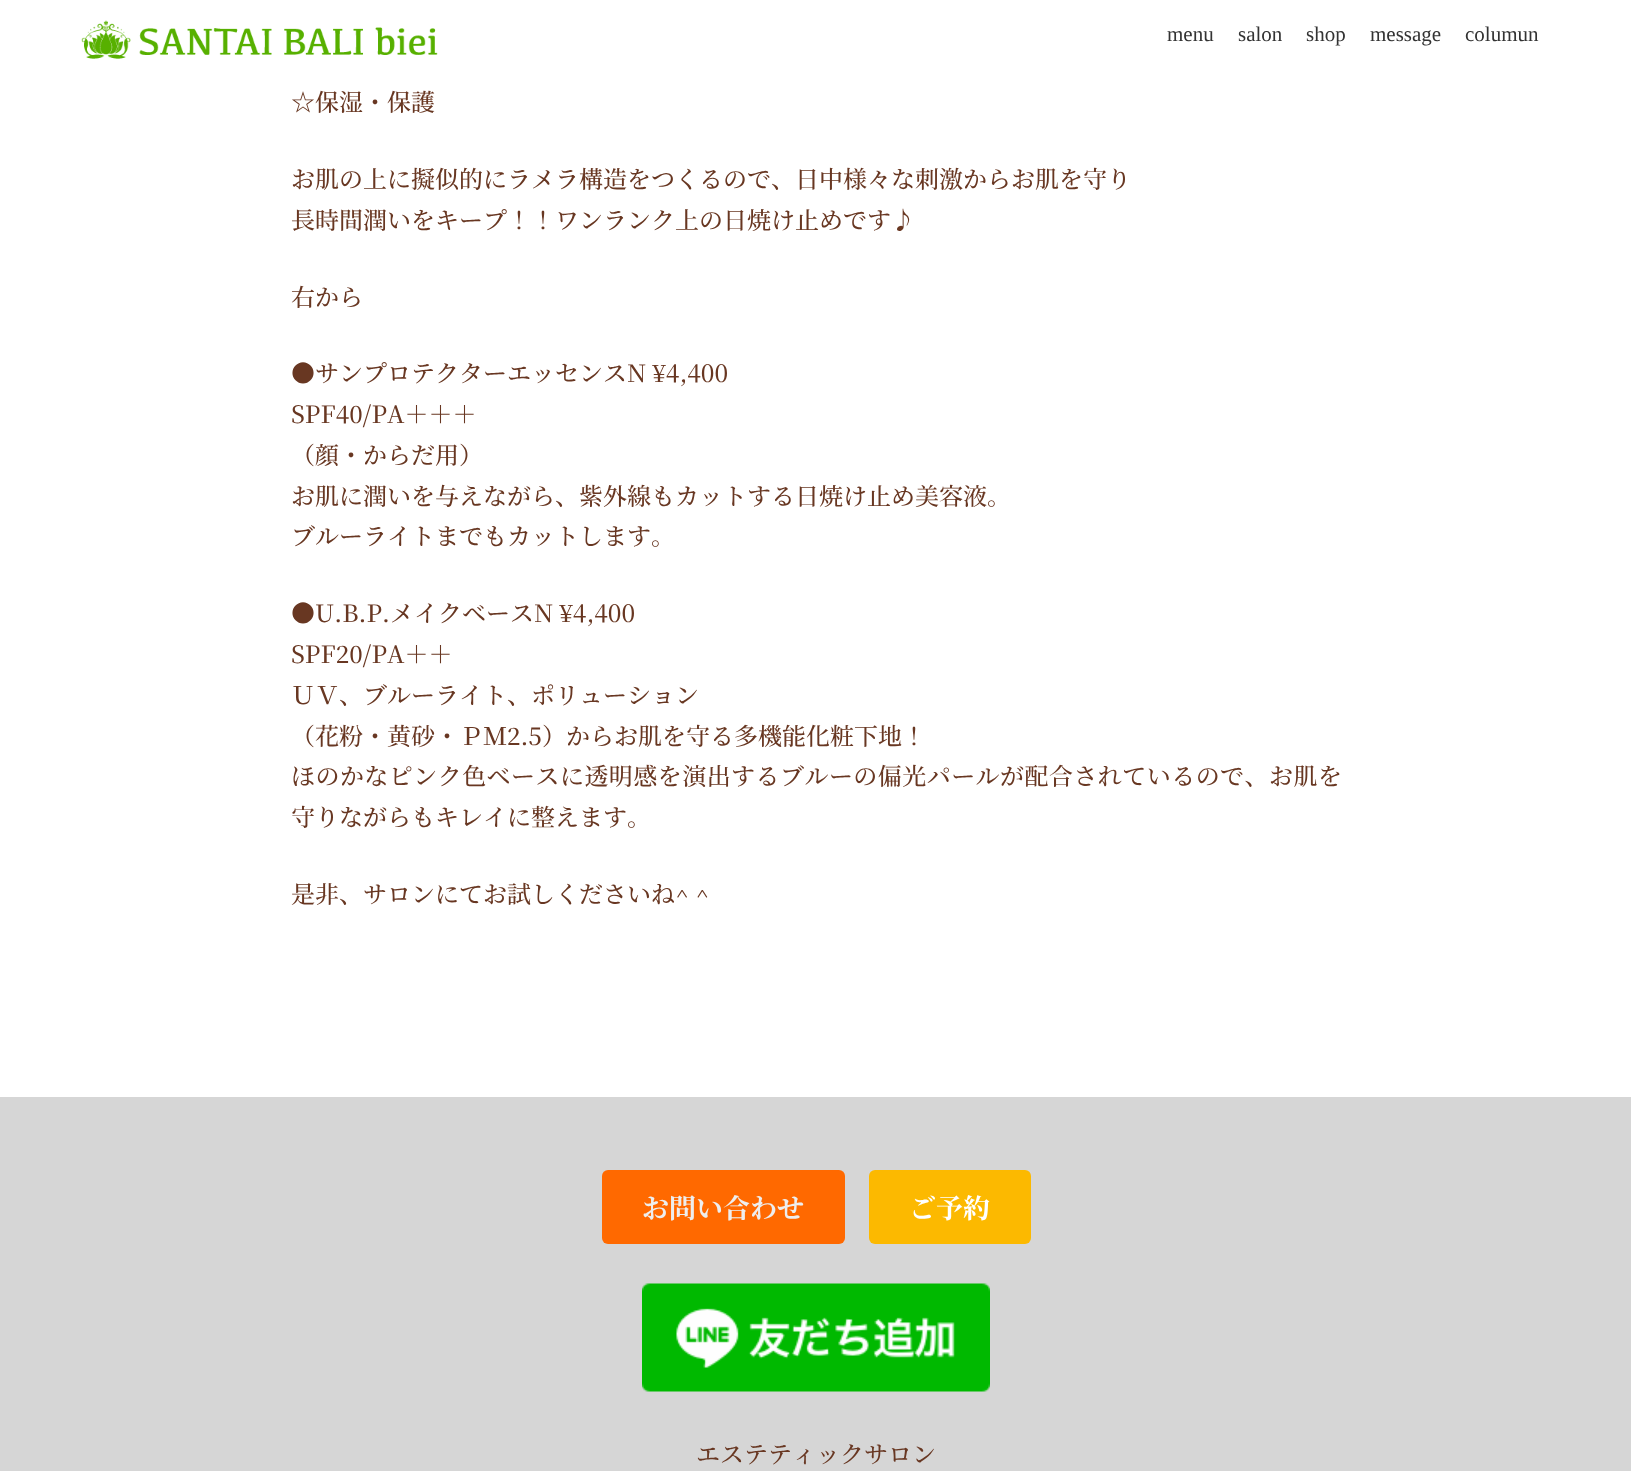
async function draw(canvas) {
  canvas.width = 1631;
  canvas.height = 1471;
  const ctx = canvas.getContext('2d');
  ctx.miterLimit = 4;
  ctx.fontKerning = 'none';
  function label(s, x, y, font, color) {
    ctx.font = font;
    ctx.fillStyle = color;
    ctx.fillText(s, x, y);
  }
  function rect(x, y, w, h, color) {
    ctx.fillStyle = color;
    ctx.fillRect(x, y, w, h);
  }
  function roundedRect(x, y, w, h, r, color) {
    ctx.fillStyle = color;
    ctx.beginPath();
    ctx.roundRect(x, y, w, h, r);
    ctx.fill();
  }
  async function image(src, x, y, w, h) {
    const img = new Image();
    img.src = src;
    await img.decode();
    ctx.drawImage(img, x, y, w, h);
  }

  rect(0, 0, 1631, 1471, '#fff');
  await image('assets/img1.png', 81, 20, 357, 39);
  label('menu', 1167, 41, '21px Liberation Serif', '#333');
  label('salon', 1238, 41, '21px Liberation Serif', '#333');
  label('shop', 1306, 41, '21px Liberation Serif', '#333');
  label('message', 1370, 41, '21px Liberation Serif', '#333');
  label('columun', 1465, 41, '21px Liberation Serif', '#333');
  label('☆保湿・保護', 291, 111, '500 24px Noto Serif JP', '#683722');
  label('お肌の上に擬似的にラメラ構造をつくるので、日中様々な刺激からお肌を守り', 291, 188, '500 24px Noto Serif JP', '#683722');
  label('長時間潤いをキープ！！ワンランク上の日焼け止めです♪', 291, 229, '500 24px Noto Serif JP', '#683722');
  label('右から', 291, 306, '500 24px Noto Serif JP', '#683722');
  label('●サンプロテクターエッセンスN ¥4,400', 291, 382, '500 24px Noto Serif JP', '#683722');
  label('SPF40/PA＋＋＋', 291, 423, '500 24px Noto Serif JP', '#683722');
  label('（顔・からだ用）', 291, 464, '500 24px Noto Serif JP', '#683722');
  label('お肌に潤いを与えながら、紫外線もカットする日焼け止め美容液。', 291, 505, '500 24px Noto Serif JP', '#683722');
  label('ブルーライトまでもカットします。', 291, 545, '500 24px Noto Serif JP', '#683722');
  label('●U.B.P.', 291, 622, '500 24px Noto Serif JP', '#683722');
  label('メイクベースN ¥4,400', 390, 622, '500 24px Noto Serif JP', '#683722');
  label('SPF20/PA＋＋', 291, 663, '500 24px Noto Serif JP', '#683722');
  label('ＵＶ、ブルーライト、ポリ', 291, 704, '500 24px Noto Serif JP', '#683722');
  label('ューション', 579, 704, '500 24px Noto Serif JP', '#683722');
  label('（花粉・黄砂・ＰＭ2.5）からお肌を守る多機能化粧下地！', 291, 745, '500 24px Noto Serif JP', '#683722');
  ctx.letterSpacing = '0.45px';
  label('ほのかなピンク色ベースに透明感を演出するブルーの偏光パールが配合されているので、お肌を', 291, 785, '500 24px Noto Serif JP', '#683722');
  ctx.letterSpacing = '0px';
  label('守りながらもキレイに整えます。', 291, 826, '500 24px Noto Serif JP', '#683722');
  label('是非、サロンにてお試しくださいね^ ^', 291, 903, '500 24px Noto Serif JP', '#683722');
  rect(0, 1097, 1631, 374, '#d6d6d6');
  roundedRect(602, 1170, 243, 74, 6, '#ff6900');
  label('お問い合わせ', 642, 1218, 'bold 27px Noto Serif JP', '#eee');
  roundedRect(869, 1170, 162, 74, 6, '#fcb900');
  label('ご予約', 909, 1218, 'bold 27px Noto Serif JP', '#fff');
  await image('assets/img2.png', 642, 1283, 348, 109);
  label('エステティックサロン', 696, 1463, '500 24px Noto Serif JP', '#683722');
}

draw(document.querySelector('canvas'));
